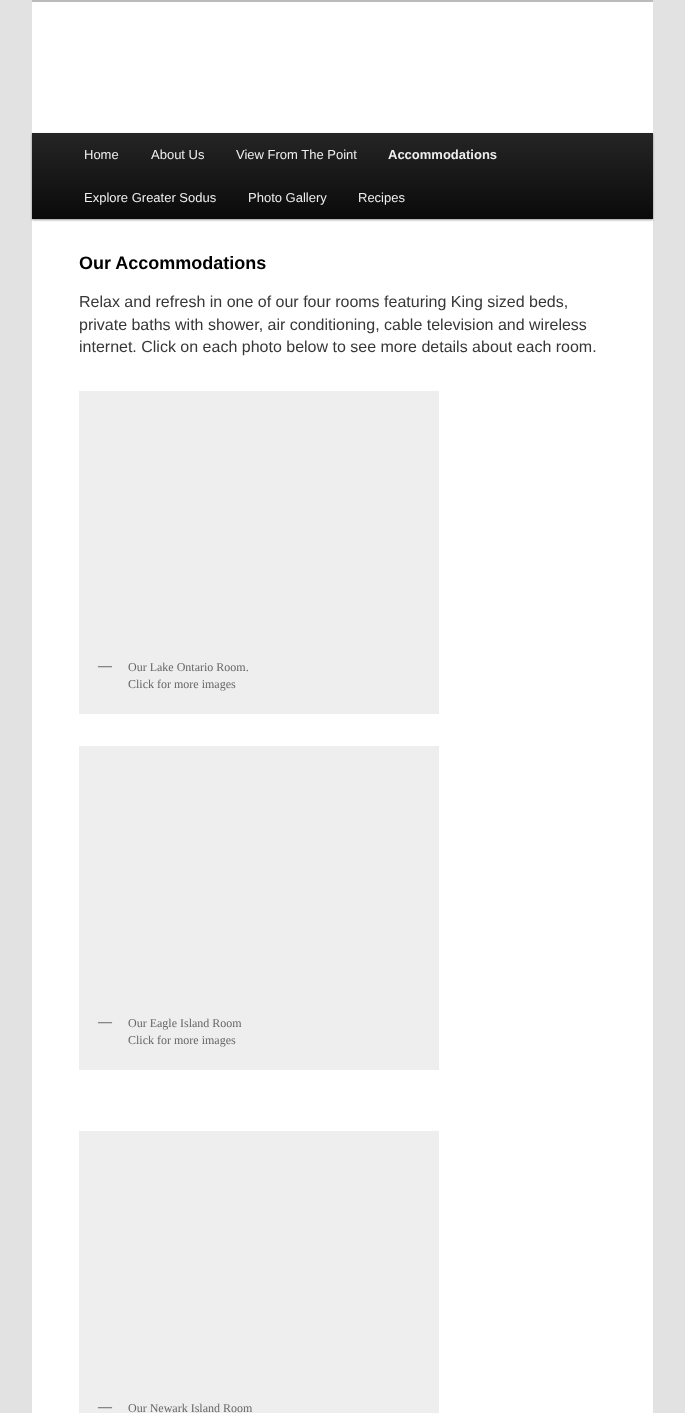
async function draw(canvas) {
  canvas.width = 685;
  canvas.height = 1413;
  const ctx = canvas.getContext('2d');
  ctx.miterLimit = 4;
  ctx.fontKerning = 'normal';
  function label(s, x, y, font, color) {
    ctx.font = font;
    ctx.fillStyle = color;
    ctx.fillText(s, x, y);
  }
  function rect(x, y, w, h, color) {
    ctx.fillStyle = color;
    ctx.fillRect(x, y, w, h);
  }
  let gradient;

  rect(0, 0, 685, 1413, '#e2e2e2');
  rect(32, 2, 621, 1411, '#fff');
  rect(32, 0, 621, 2, '#bbb');
  ctx.fillStyle = '#00000066';
  ctx.filter = 'blur(1px)';
  ctx.beginPath();
  ctx.rect(32, 134, 621, 86);
  ctx.fill();
  ctx.filter = 'none';
  gradient = ctx.createLinearGradient(343, 133, 343, 219);
  gradient.addColorStop(0, '#252525');
  gradient.addColorStop(1, '#0a0a0a');
  ctx.fillStyle = gradient;
  ctx.fillRect(32, 133, 621, 86);
  label('Home', 84, 159, '13px Liberation Sans', '#eee');
  label('About Us', 151, 159, '13px Liberation Sans', '#eee');
  label('View From The Point', 236, 159, '13px Liberation Sans', '#eee');
  label('Accommodations', 388, 159, 'bold 13px Liberation Sans', '#eee');
  label('Explore Greater Sodus', 84, 202, '13px Liberation Sans', '#eee');
  label('Photo Gallery', 248, 202, '13px Liberation Sans', '#eee');
  label('Recipes', 358, 202, '13px Liberation Sans', '#eee');
  label('Our Accommodations', 79, 269, 'bold 18px Liberation Sans', '#000');
  label('Relax and refresh in one of our four rooms featuring King sized beds,', 79, 307, '16px Liberation Sans', '#373737');
  label('private baths with shower, air conditioning, cable television and wireless', 79, 330, '16px Liberation Sans', '#373737');
  label('internet. Click on each photo below to see more details about each room.', 79, 352, '16px Liberation Sans', '#373737');
  rect(79, 391, 360, 323, '#eee');
  label('—', 98, 670, 'bold 14px Liberation Serif', '#666');
  label('Our Lake Ontario Room.', 128, 671, '12px Liberation Serif', '#666');
  label('Click for more images', 128, 688, '12px Liberation Serif', '#666');
  rect(79, 746, 360, 324, '#eee');
  label('—', 98, 1026, 'bold 14px Liberation Serif', '#666');
  label('Our Eagle Island Room', 128, 1027, '12px Liberation Serif', '#666');
  label('Click for more images', 128, 1044, '12px Liberation Serif', '#666');
  rect(79, 1131, 360, 282, '#eee');
  label('—', 98, 1411, 'bold 14px Liberation Serif', '#666');
  label('Our Newark Island Room', 128, 1412, '12px Liberation Serif', '#666');
}

draw(document.querySelector('canvas'));
